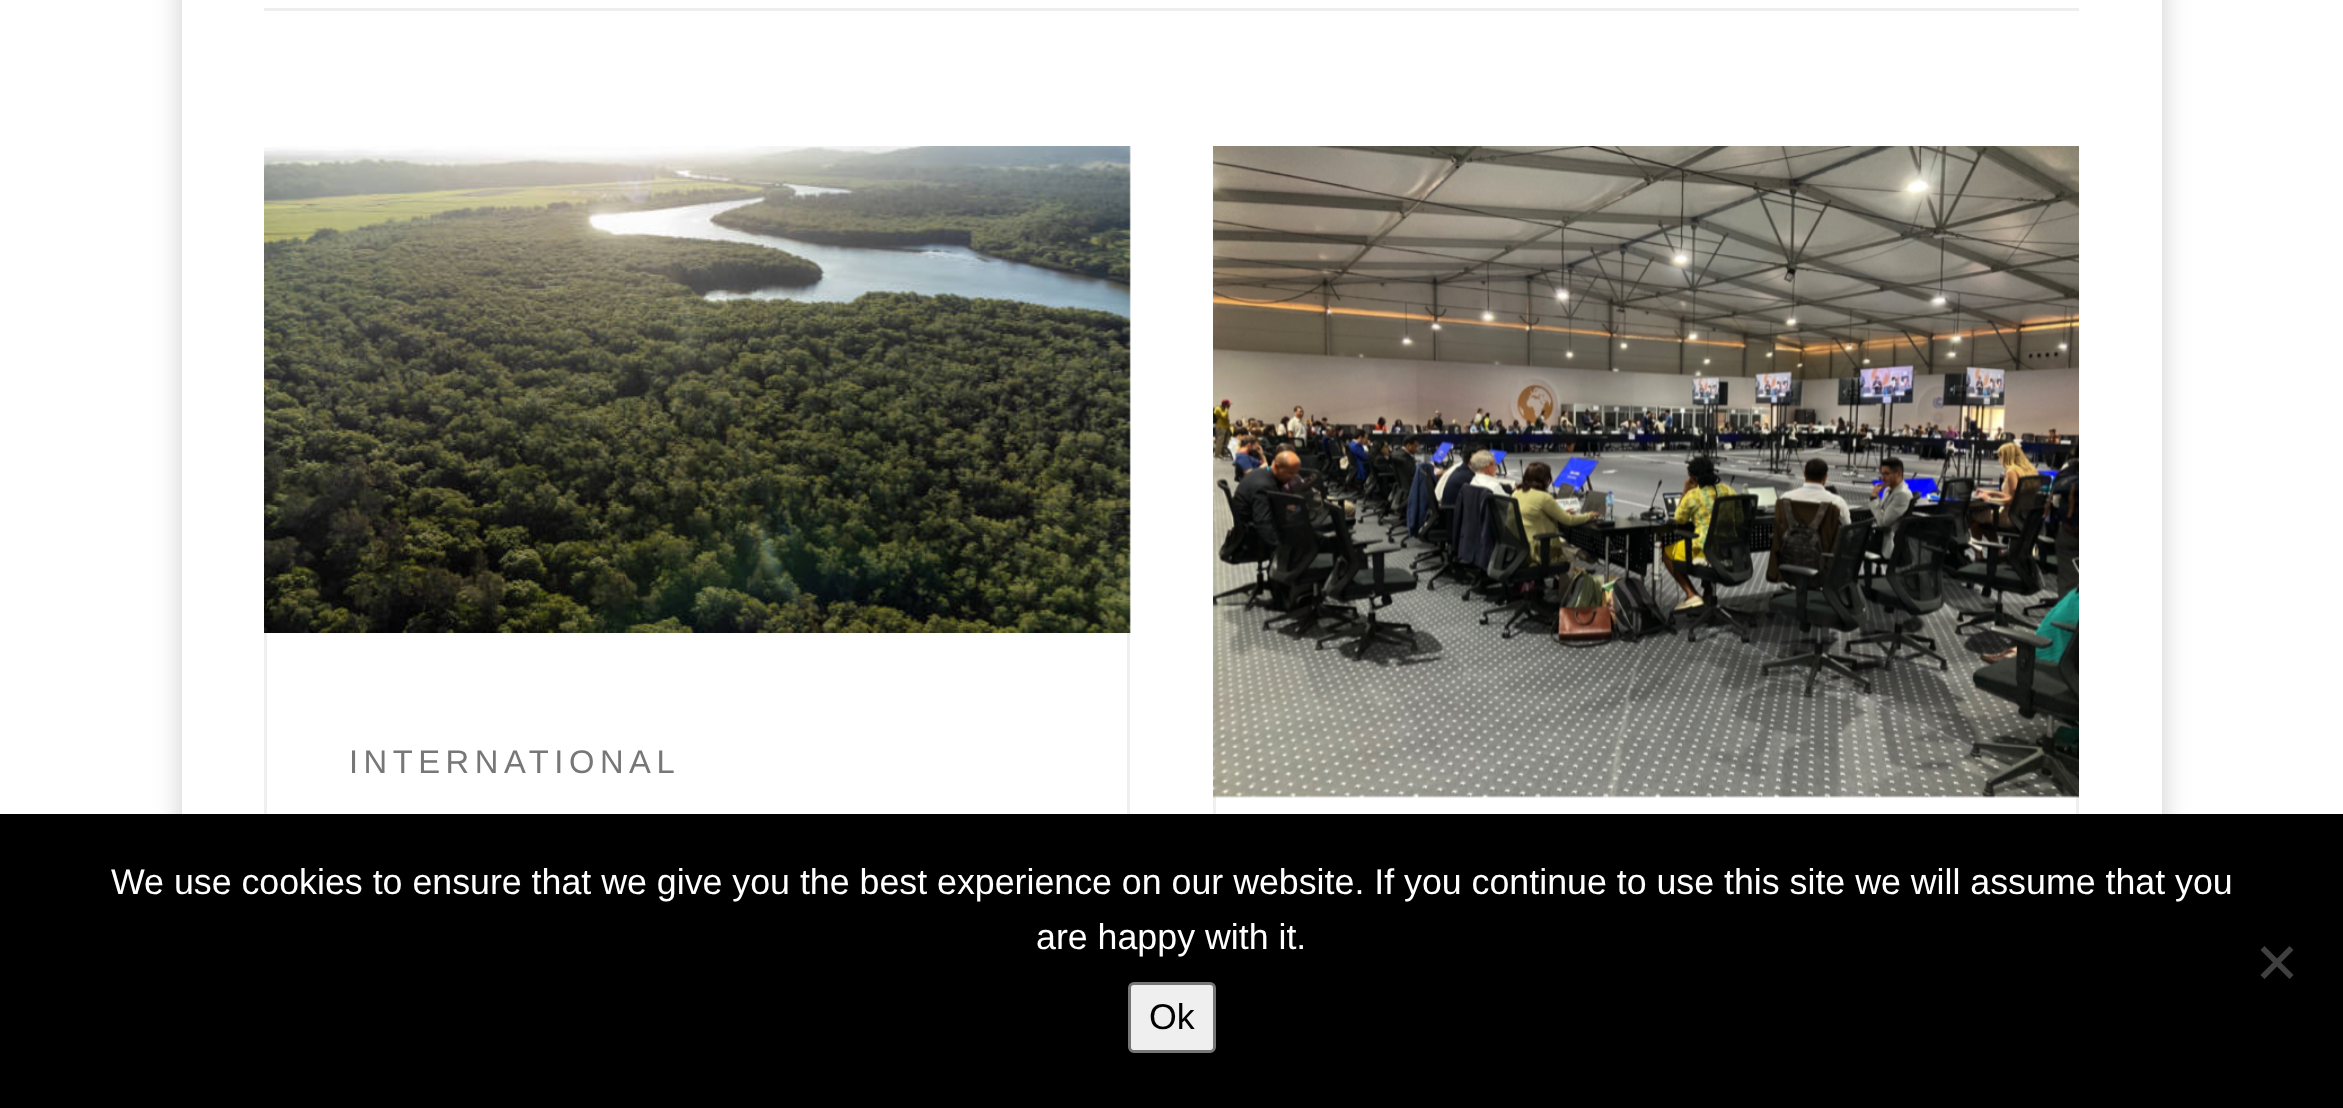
async function draw(canvas) {
  canvas.width = 2343;
  canvas.height = 1108;
  const ctx = canvas.getContext('2d');
  ctx.miterLimit = 4;
  ctx.fontKerning = 'normal';
  function label(s, x, y, font, color) {
    ctx.font = font;
    ctx.fillStyle = color;
    ctx.fillText(s, x, y);
  }
  function rect(x, y, w, h, color) {
    ctx.fillStyle = color;
    ctx.fillRect(x, y, w, h);
  }
  async function image(src, x, y, w, h) {
    const img = new Image();
    img.src = src;
    await img.decode();
    ctx.drawImage(img, x, y, w, h);
  }
  let path;

  rect(0, 0, 2343, 1108, '#fff');
  ctx.fillStyle = '#00000033';
  ctx.filter = 'blur(14px)';
  ctx.beginPath();
  ctx.rect(182, -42, 1980, 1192);
  ctx.fill();
  ctx.filter = 'none';
  rect(182, 0, 1980, 814, '#fff');
  rect(264, 8, 1815, 3, '#eceeef');
  ctx.strokeStyle = '#efefef';
  ctx.lineWidth = 3;
  ctx.strokeRect(265.5, 147.5, 863, 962);
  await image('assets/img1.png', 264, 146, 867, 487);
  ctx.letterSpacing = '5.5px';
  label('INTERNATIONAL', 349, 773, '32.75px Liberation Sans', '#777');
  ctx.strokeRect(1214.5, 147.5, 863, 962);
  await image('assets/img2.png', 1213, 146, 866, 652);
  rect(0, 814, 2343, 294, '#000');
  ctx.letterSpacing = '0px';
  label('We use cookies to ensure that we give you the best experience on our website. If you continue to use this site we will assume that you', 111, 894, '35.75px Liberation Sans', '#fff');
  label('are happy with it.', 1036, 949, '35.75px Liberation Sans', '#fff');
  ctx.fillStyle = '#404040';
  path = new Path2D('M2289.5 946L2293.5 950L2264.5 979L2260.5 975Z');
  ctx.fill(path);
  path = new Path2D('M2260.5 950L2264.5 946L2293.5 975L2289.5 979Z');
  ctx.fill(path);
  ctx.fillStyle = '#efefef';
  ctx.beginPath();
  ctx.roundRect(1129.5, 983.5, 85, 68, 4.5);
  ctx.fill();
  ctx.strokeStyle = '#767676';
  ctx.stroke();
  label('Ok', 1149, 1029, '35.75px Liberation Sans', '#000');
}

draw(document.querySelector('canvas'));
